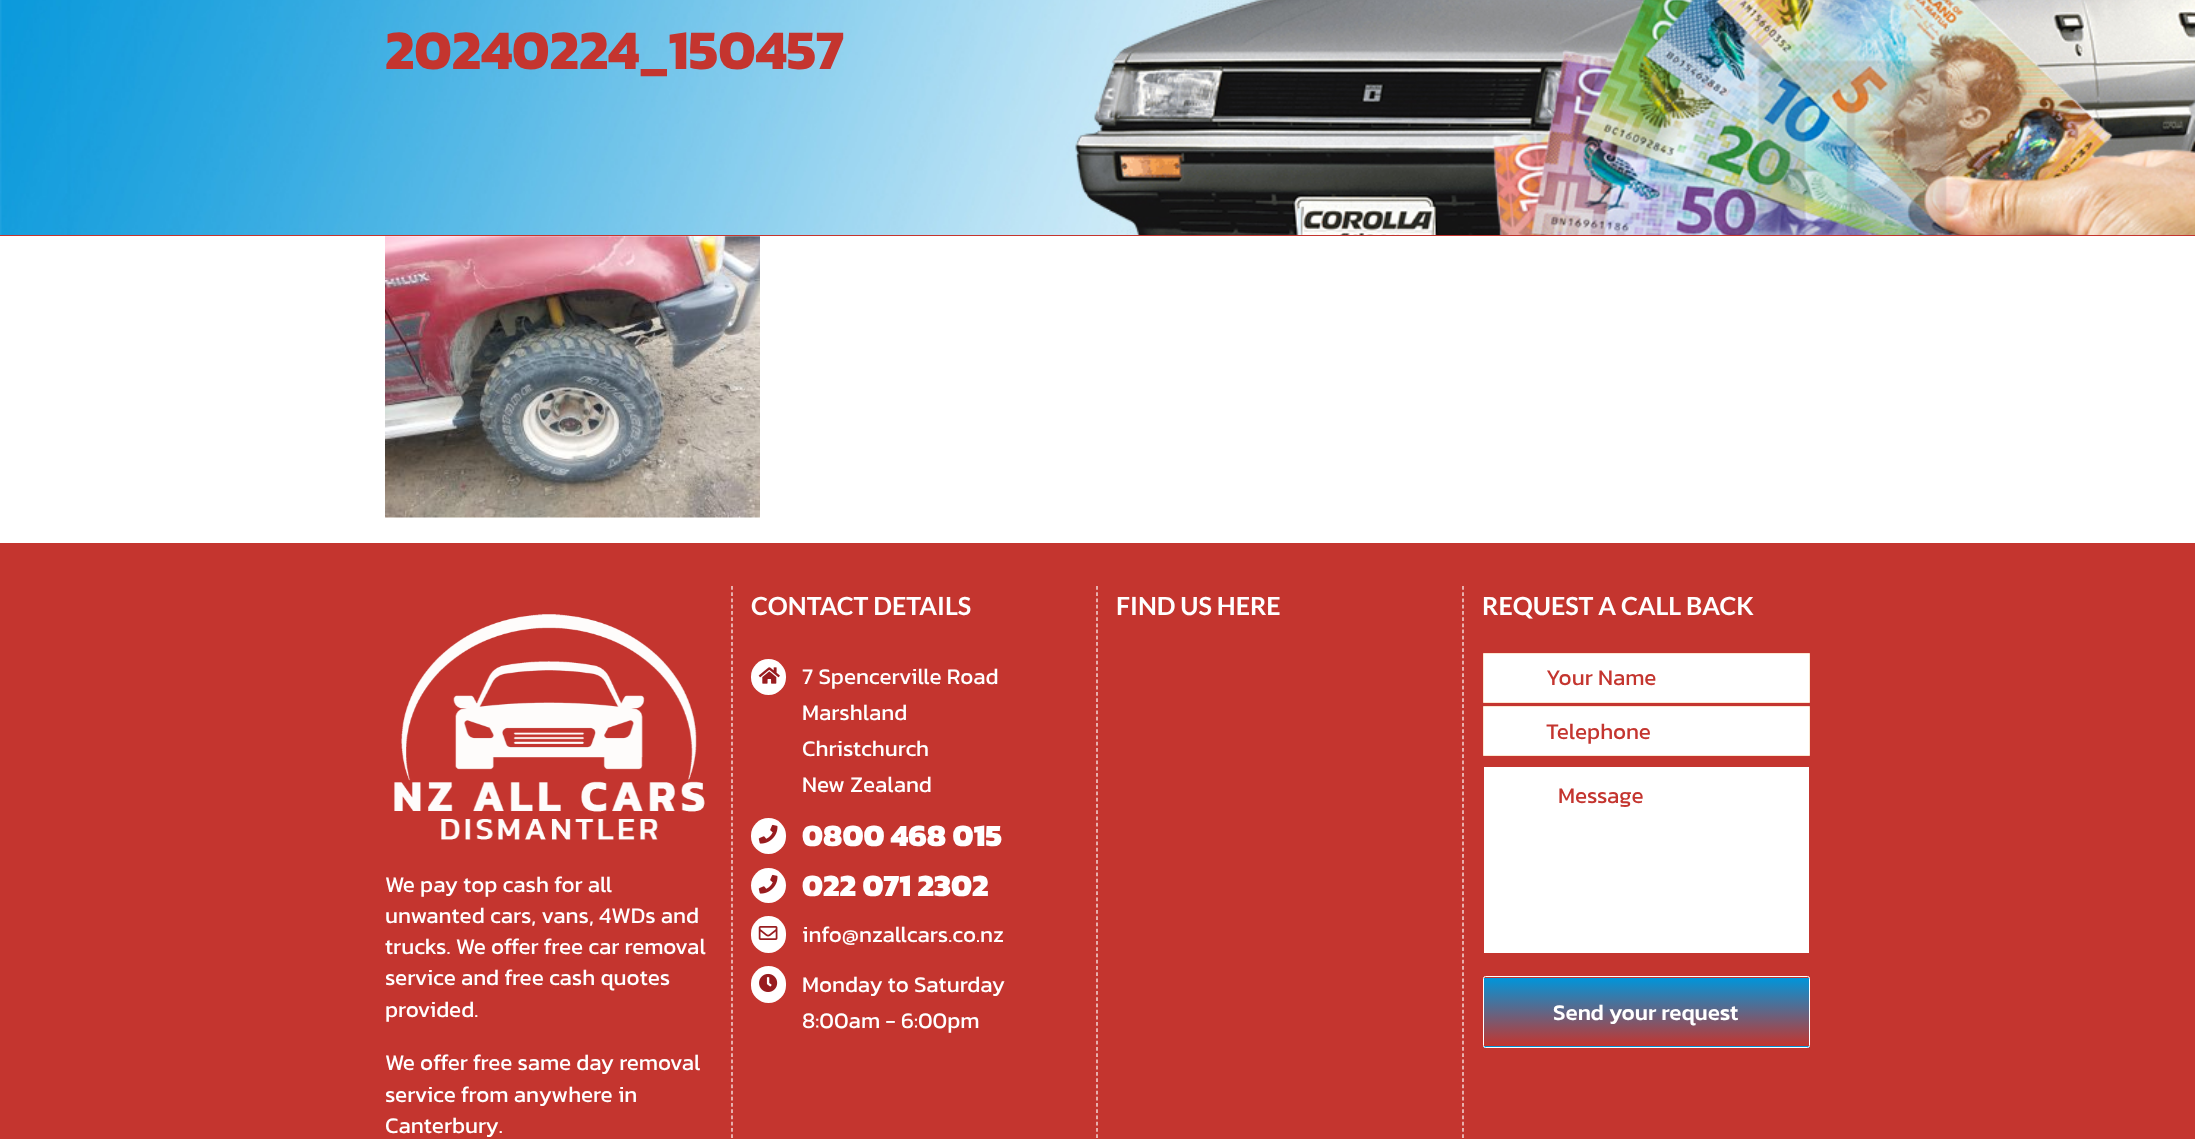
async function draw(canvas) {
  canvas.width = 2195;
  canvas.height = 1139;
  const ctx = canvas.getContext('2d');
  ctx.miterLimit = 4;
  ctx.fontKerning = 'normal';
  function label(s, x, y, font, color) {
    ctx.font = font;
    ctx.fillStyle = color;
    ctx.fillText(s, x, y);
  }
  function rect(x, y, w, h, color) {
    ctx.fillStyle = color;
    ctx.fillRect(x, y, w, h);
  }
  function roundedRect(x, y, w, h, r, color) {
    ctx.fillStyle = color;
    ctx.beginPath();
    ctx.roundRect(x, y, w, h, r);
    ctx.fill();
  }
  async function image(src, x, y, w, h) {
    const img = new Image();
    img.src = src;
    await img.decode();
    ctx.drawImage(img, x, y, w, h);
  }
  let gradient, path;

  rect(0, 0, 2195, 1139, '#fff');
  await image('assets/img1.png', 0, 0, 2195, 235);
  rect(0, 235, 2195, 1, '#c4352f');
  label('20240224_150457', 385, 69, 'bold 56.25px Kanit', '#c4352f');
  await image('assets/img2.png', 385, 236, 375, 282);
  rect(0, 543, 2195, 596, '#c4352f');
  path = new Path2D('M732 586V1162.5');
  ctx.strokeStyle = '#fff';
  ctx.lineWidth = 1.2;
  ctx.setLineDash([3.75, 2.48]);
  ctx.stroke(path);
  await image('assets/img3.png', 394, 614, 311, 226);
  label('We pay top cash for all', 385, 892, '22.5px Kanit', '#fff');
  label('unwanted cars, vans, 4WDs and', 385, 923, '22.5px Kanit', '#fff');
  label('trucks. We offer free car removal', 385, 954, '22.5px Kanit', '#fff');
  label('service and free cash quotes', 385, 985, '22.5px Kanit', '#fff');
  label('provided.', 385, 1017, '22.5px Kanit', '#fff');
  label('We offer free same day removal', 385, 1070, '22.5px Kanit', '#fff');
  label('service from anywhere in', 385, 1102, '22.5px Kanit', '#fff');
  label('Canterbury.', 385, 1133, '22.5px Kanit', '#fff');
  path = new Path2D('M1097 586V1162.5');
  ctx.stroke(path);
  label('CONTACT DETAILS', 751, 615, 'bold 25px Lato', '#fff');
  roundedRect(751, 659, 35, 36, 17.5, '#fff');
  await image('assets/img4.png', 758, 667, 22, 17);
  label('7 Spencerville Road', 802, 684, '22.5px Kanit', '#fff');
  label('Marshland', 802, 720, '22.5px Kanit', '#fff');
  label('Christchurch', 802, 756, '22.5px Kanit', '#fff');
  label('New Zealand', 802, 792, '22.5px Kanit', '#fff');
  roundedRect(751, 818, 35, 36, 17.5, '#fff');
  await image('assets/img5.png', 758, 824, 20, 20);
  label('0800 468 015', 802, 846, '800 31.25px Kanit', '#fff');
  ctx.beginPath();
  ctx.arc(768.5, 885.5, 17.5, 0, 2 * Math.PI);
  ctx.fill();
  await image('assets/img5.png', 758, 874, 20, 20);
  label('022 071 2302', 802, 896, '800 31.25px Kanit', '#fff');
  roundedRect(751, 916, 35, 37, 17.5, '#fff');
  await image('assets/img6.png', 758, 926, 20, 14);
  label('info@nzallcars.co.nz', 802, 942, '22.5px Kanit', '#fff');
  roundedRect(751, 966, 35, 37, 17.5, '#fff');
  await image('assets/img7.png', 759, 973, 19, 19);
  label('Monday to Saturday', 802, 992, '22.5px Kanit', '#fff');
  label('8:00am - 6:00pm', 802, 1028, '22.5px Kanit', '#fff');
  path = new Path2D('M1463 586V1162.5');
  ctx.stroke(path);
  label('FIND US HERE', 1116, 615, 'bold 25px Lato', '#fff');
  label('REQUEST A CALL BACK', 1482, 615, 'bold 25px Lato', '#fff');
  ctx.beginPath();
  ctx.rect(1483.5, 653.5, 326, 49);
  ctx.fill();
  ctx.strokeStyle = '#fce7d2';
  ctx.lineWidth = 1;
  ctx.setLineDash([]);
  ctx.stroke();
  label('Your Name', 1546, 685, '22.5px Kanit', '#c4352f');
  ctx.fillStyle = '#fff';
  ctx.beginPath();
  ctx.rect(1483.5, 706.5, 326, 49);
  ctx.fill();
  ctx.stroke();
  label('Telephone', 1546, 739, '22.5px Kanit', '#c4352f');
  rect(1484, 767, 325, 186, '#fff');
  label('Message', 1558, 803, '22.5px Kanit', '#c4352f');
  ctx.save();
  ctx.beginPath();
  ctx.roundRect(1483, 976, 327, 72, 2.5);
  ctx.clip();
  gradient = ctx.createLinearGradient(1646, 978, 1646, 909);
  gradient.addColorStop(0, '#c4352f');
  gradient.addColorStop(1, '#0095da');
  ctx.fillStyle = gradient;
  ctx.fillRect(1483, 976, 327, 2);
  ctx.restore();
  gradient = ctx.createLinearGradient(1646, 1046, 1646, 978);
  gradient.addColorStop(0, '#c4352f');
  gradient.addColorStop(1, '#0095da');
  ctx.fillStyle = gradient;
  ctx.fillRect(1483, 978, 327, 67);
  ctx.save();
  ctx.beginPath();
  ctx.roundRect(1483, 976, 327, 72, 2.5);
  ctx.clip();
  gradient = ctx.createLinearGradient(1646, 1115, 1646, 1046);
  gradient.addColorStop(0, '#c4352f');
  gradient.addColorStop(1, '#0095da');
  ctx.fillStyle = gradient;
  ctx.fillRect(1483, 1046, 327, 2);
  ctx.restore();
  ctx.beginPath();
  ctx.roundRect(1483.5, 976.5, 326, 71, 2);
  ctx.strokeStyle = '#fff';
  ctx.stroke();
  label('Send your request', 1553, 1020, '500 22.5px Kanit', '#fff');
}

draw(document.querySelector('canvas'));
